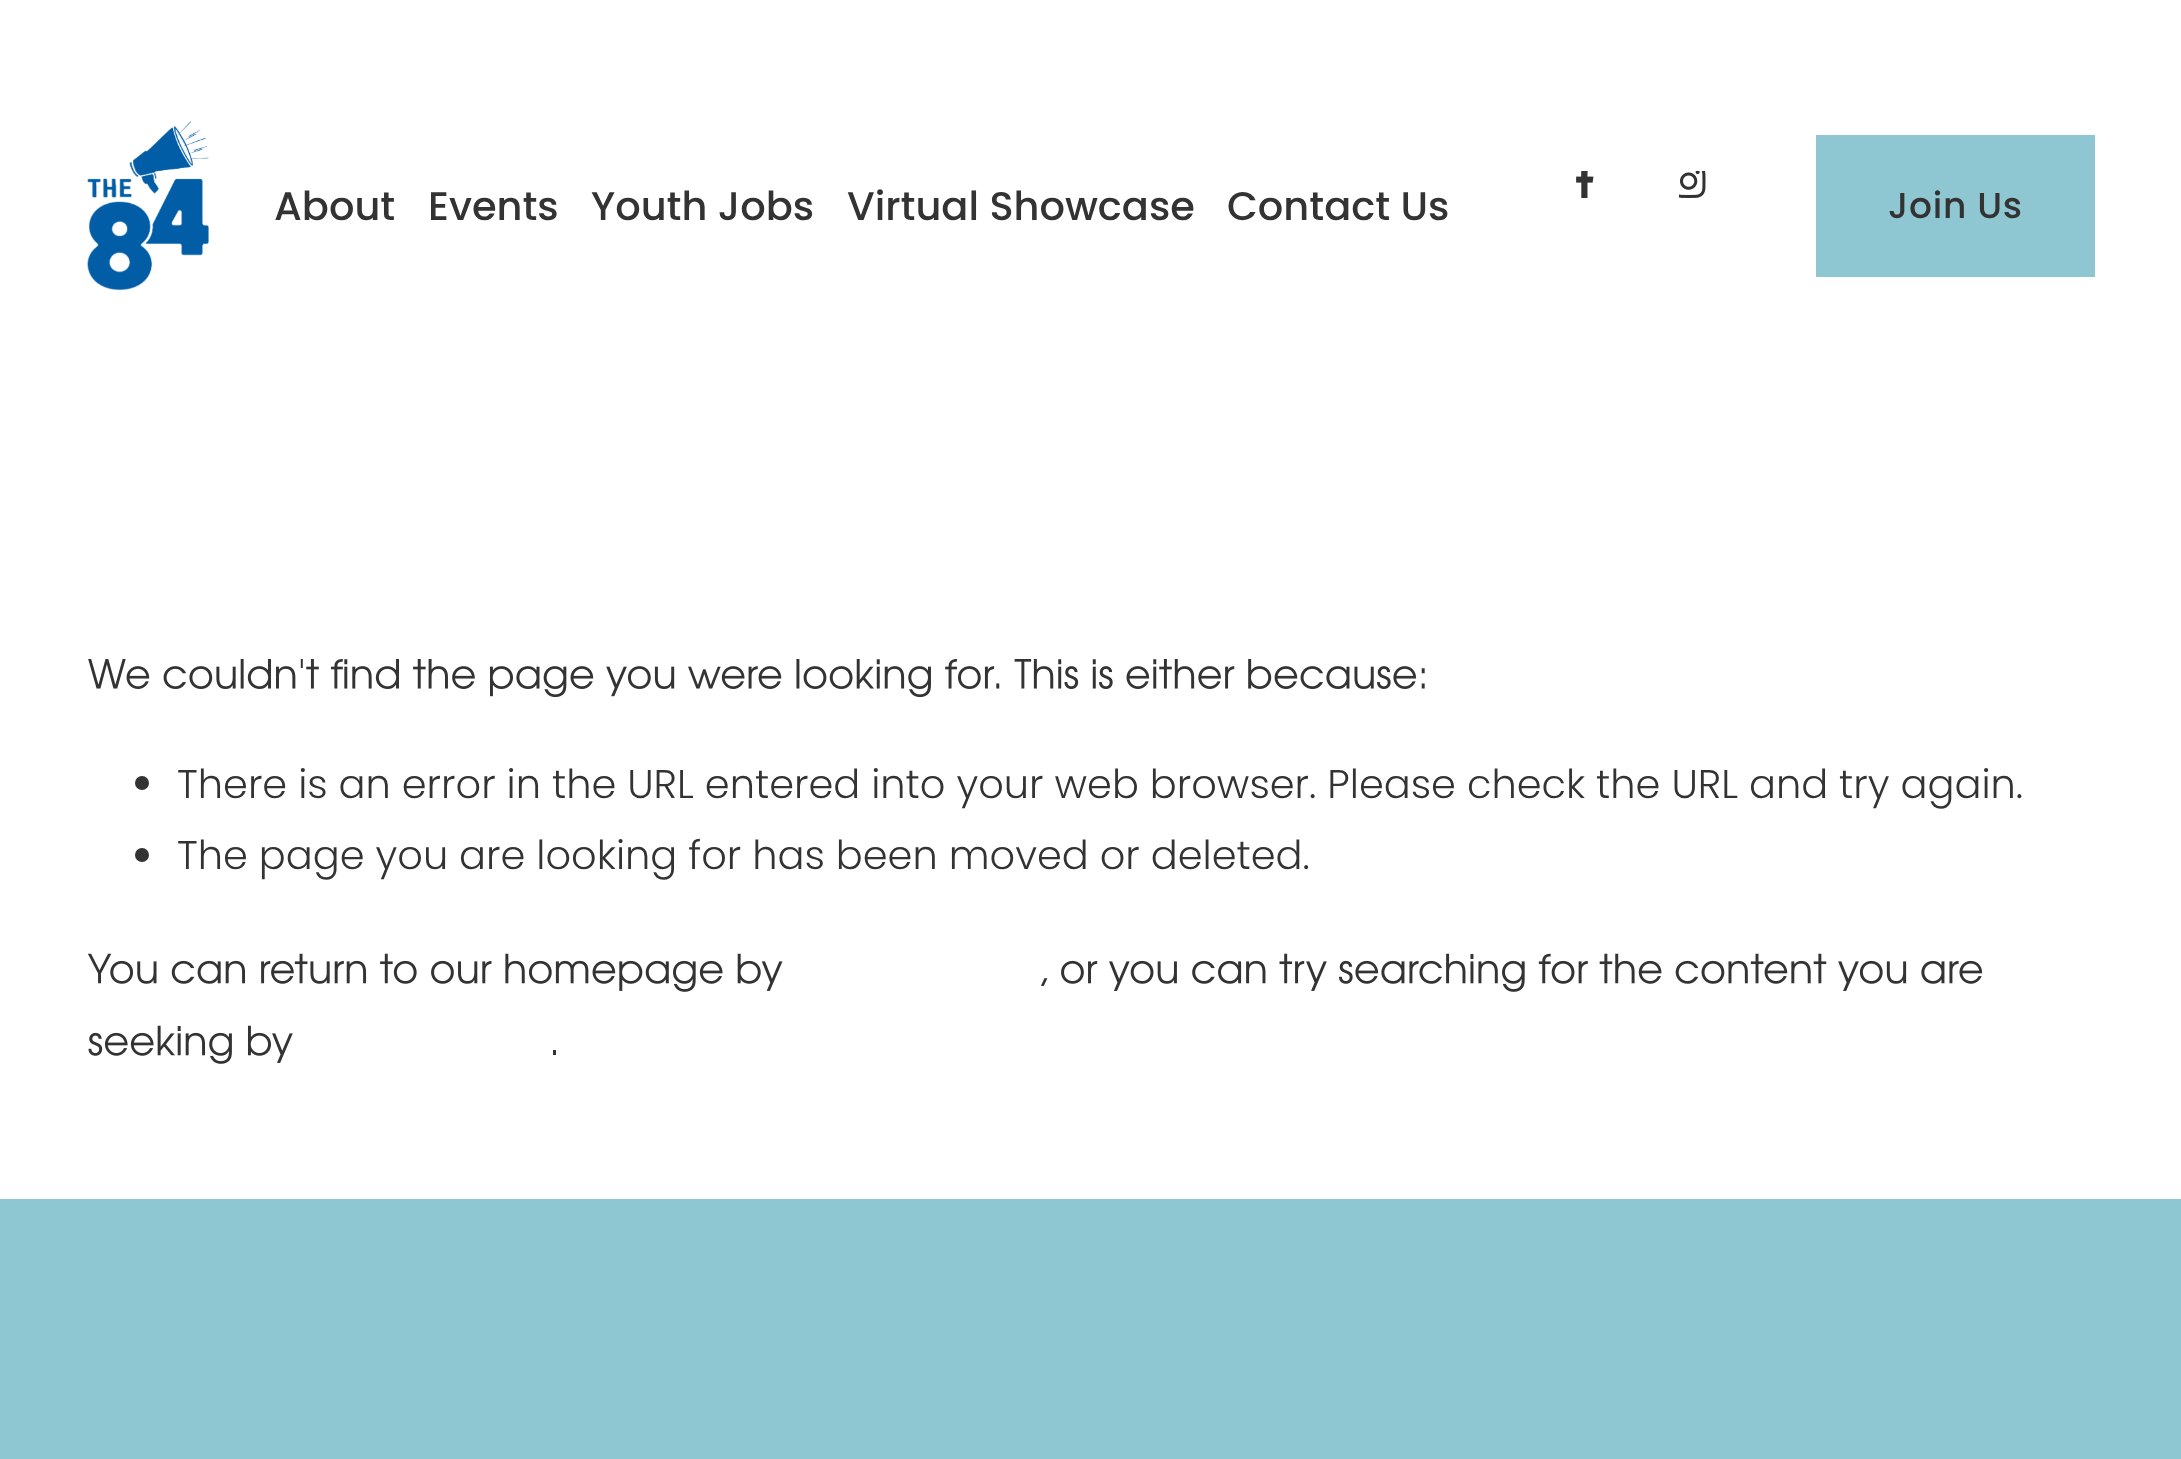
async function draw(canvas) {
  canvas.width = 2181;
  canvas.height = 1459;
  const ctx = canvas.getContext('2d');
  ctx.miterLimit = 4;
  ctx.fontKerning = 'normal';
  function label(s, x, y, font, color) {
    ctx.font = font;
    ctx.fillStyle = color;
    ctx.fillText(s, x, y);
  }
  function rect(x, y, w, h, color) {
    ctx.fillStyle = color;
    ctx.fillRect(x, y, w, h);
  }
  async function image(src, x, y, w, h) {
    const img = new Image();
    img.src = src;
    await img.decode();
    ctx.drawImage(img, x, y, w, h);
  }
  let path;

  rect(0, 0, 2181, 1459, '#fff');
  await image('assets/img1.png', 87, 121, 122, 170);
  label('About', 274, 220, '500 39.95px Poppins', '#333');
  label('Events', 428, 220, '500 39.95px Poppins', '#333');
  label('Youth Jobs', 591, 220, '500 39.95px Poppins', '#333');
  label('Virtual Showcase', 847, 220, '500 39.95px Poppins', '#333');
  label('Contact Us', 1227, 220, '500 39.95px Poppins', '#333');
  await image('assets/img2.png', 1576, 171, 18, 27);
  await image('assets/img3.png', 1679, 171, 27, 27);
  rect(1816, 135, 279, 142, '#8ec7d2');
  ctx.letterSpacing = '0.75px';
  label('Join Us', 1888, 218, '500 36px Poppins', '#333');
  await image('assets/img4.png', 88, 659, 1337, 39);
  ctx.beginPath();
  ctx.arc(142, 783, 7, 0, 2 * Math.PI);
  ctx.fill();
  ctx.letterSpacing = '0px';
  label('There is an error in the URL entered into your web browser. Please check the URL and try again.', 177, 798, '300 39.95px Poppins', '#333');
  ctx.beginPath();
  ctx.arc(142, 855, 7, 0, 2 * Math.PI);
  ctx.fill();
  label('The page you are looking for has been moved or deleted.', 177, 869, '300 39.95px Poppins', '#333');
  await image('assets/img5.png', 87, 953, 696, 39);
  await image('assets/img6.png', 1041, 953, 621, 39);
  await image('assets/img7.png', 1675, 953, 308, 38);
  await image('assets/img8.png', 88, 1025, 205, 39);
  path = new Path2D('M556 1055V1050H553V1055Z');
  ctx.fill(path);
  rect(0, 1199, 2181, 260, '#8ec7d2');
}

draw(document.querySelector('canvas'));
